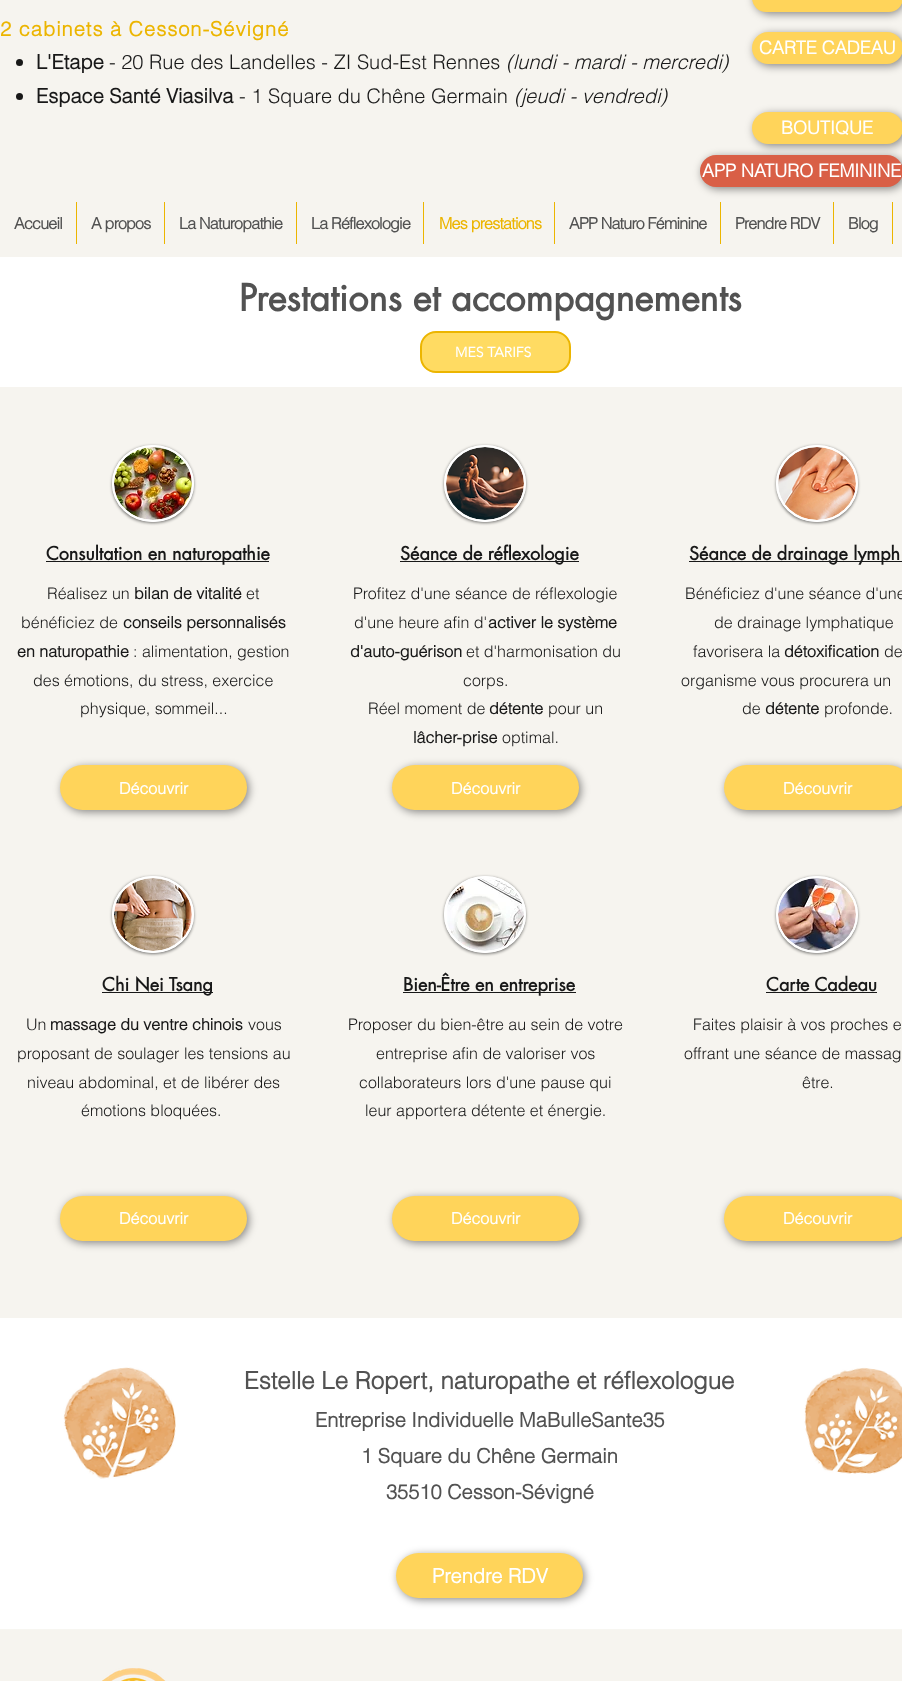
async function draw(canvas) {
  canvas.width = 902;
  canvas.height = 1681;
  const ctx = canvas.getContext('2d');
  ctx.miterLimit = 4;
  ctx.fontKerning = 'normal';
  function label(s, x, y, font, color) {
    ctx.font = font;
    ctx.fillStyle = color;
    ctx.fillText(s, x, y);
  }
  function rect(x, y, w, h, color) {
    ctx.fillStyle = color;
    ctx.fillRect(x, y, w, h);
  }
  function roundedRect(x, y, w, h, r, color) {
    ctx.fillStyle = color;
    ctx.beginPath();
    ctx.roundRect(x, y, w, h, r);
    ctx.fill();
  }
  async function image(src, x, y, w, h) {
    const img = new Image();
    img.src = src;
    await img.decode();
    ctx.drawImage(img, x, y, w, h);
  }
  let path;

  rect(0, 0, 902, 1681, '#fff');
  rect(0, 0, 902, 257, '#f6f4ef');
  ctx.fillStyle = '#00000073';
  ctx.filter = 'blur(4px)';
  ctx.beginPath();
  ctx.roundRect(754, -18, 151, 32, 16);
  ctx.fill();
  ctx.filter = 'none';
  roundedRect(752, -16, 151, 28, 16, '#ffd45a');
  ctx.letterSpacing = '1px';
  label('2 cabinets à Cesson-Sévigné', 0, 36, 'bold 20px helvetica', '#ecb500');
  ctx.fillStyle = '#181818';
  ctx.beginPath();
  ctx.arc(19.5, 62.5, 3.5, 0, 2 * Math.PI);
  ctx.fill();
  ctx.letterSpacing = '0px';
  label('L\'Etape', 36, 69, 'bold 20px helvetica', '#181818');
  label('- 20 Rue des Landelles - ZI Sud-Est Rennes', 109, 69, '300 20px helvetica', '#181818');
  label('(lundi - mardi - mercredi)', 506, 69, 'italic 300 20px helvetica', '#181818');
  ctx.beginPath();
  ctx.arc(19.5, 96.5, 3.5, 0, 2 * Math.PI);
  ctx.fill();
  label('Espace Santé Viasilva', 36, 103, 'bold 20px helvetica', '#181818');
  label('- 1 Square du Chêne Germain', 239, 103, '300 20px helvetica', '#181818');
  label('(jeudi - vendredi)', 514, 103, 'italic 300 20px helvetica', '#181818');
  ctx.fillStyle = '#00000073';
  ctx.filter = 'blur(4px)';
  ctx.beginPath();
  ctx.roundRect(754, 34, 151, 32, 16);
  ctx.fill();
  ctx.filter = 'none';
  roundedRect(752, 32, 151, 32, 16, '#ffd45a');
  label('CARTE CADEAU', 759, 54, 'bold 18px helvetica', '#fff');
  ctx.fillStyle = '#00000073';
  ctx.filter = 'blur(4px)';
  ctx.beginPath();
  ctx.roundRect(754, 114, 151, 32, 16);
  ctx.fill();
  ctx.filter = 'none';
  roundedRect(752, 112, 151, 32, 16, '#ffd45a');
  label('BOUTIQUE', 781, 134, 'bold 18px helvetica', '#fff');
  ctx.fillStyle = '#00000073';
  ctx.filter = 'blur(4px)';
  ctx.beginPath();
  ctx.roundRect(702, 157, 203, 32, 16);
  ctx.fill();
  ctx.filter = 'none';
  roundedRect(700, 155, 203, 32, 16, '#d95f46');
  label('APP NATURO FEMININE', 702, 177, 'bold 18px helvetica', '#fff');
  rect(76, 202, 1, 42, '#ecb500');
  ctx.letterSpacing = '-0.75px';
  label('Accueil', 14, 229, 'bold 16px helvetica', '#525252');
  rect(164, 202, 1, 42, '#ecb500');
  label('A propos', 91, 229, 'bold 16px helvetica', '#525252');
  rect(296, 202, 1, 42, '#ecb500');
  label('La Naturopathie', 179, 229, 'bold 16px helvetica', '#525252');
  rect(423, 202, 1, 42, '#ecb500');
  label('La Réflexologie', 311, 229, 'bold 16px helvetica', '#525252');
  rect(554, 202, 1, 42, '#ecb500');
  label('Mes prestations', 439, 229, 'bold 16px helvetica', '#ecb500');
  rect(720, 202, 1, 42, '#ecb500');
  label('APP Naturo Féminine', 569, 229, 'bold 16px helvetica', '#525252');
  rect(833, 202, 1, 42, '#ecb500');
  label('Prendre RDV', 735, 229, 'bold 16px helvetica', '#525252');
  rect(892, 202, 1, 42, '#ecb500');
  label('Blog', 848, 229, 'bold 16px helvetica', '#525252');
  ctx.letterSpacing = '0px';
  label('Prestations et accompagnements', 239, 311, 'bold 36px futura', '#525252');
  ctx.fillStyle = '#ffdb62';
  ctx.beginPath();
  ctx.roundRect(421, 332, 149, 40, 15);
  ctx.fill();
  ctx.strokeStyle = '#ecb500';
  ctx.lineWidth = 2;
  ctx.stroke();
  label('MES TARIFS', 455, 357, 'bold 14px "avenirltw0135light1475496"', '#fff');
  rect(0, 387, 902, 931, '#f6f4ef');
  ctx.fillStyle = '#00000080';
  ctx.filter = 'blur(1.5px)';
  ctx.beginPath();
  ctx.roundRect(112, 446, 82, 77, 38.5);
  ctx.fill();
  ctx.filter = 'none';
  ctx.fillStyle = '#fff';
  ctx.beginPath();
  ctx.ellipse(153, 483.5, 41, 38.5, 0, 0, 2 * Math.PI);
  ctx.fill();
  path = new Path2D('M153 446C175 446 193 463 193 483.5C193 504 175 521 153 521C131 521 113 504 113 483.5C113 463 131 446 153 446Z');
  ctx.strokeStyle = '#fff';
  ctx.stroke(path);
  await image('assets/img1.png', 114, 447, 78, 73);
  rect(46, 561, 223, 1, '#181818');
  label('Consultation en naturopathie', 46, 560, 'bold 18px futura', '#181818');
  label('Réalisez un', 47, 599, '300 16px helvetica', '#181818');
  label('bilan de vitalité', 134, 599, 'bold 16px helvetica', '#181818');
  label('et', 246, 599, '300 16px helvetica', '#181818');
  label('bénéficiez de', 21, 628, '300 16px helvetica', '#181818');
  label('conseils personnalisés', 123, 628, 'bold 16px helvetica', '#181818');
  label('en naturopathie', 17, 657, 'bold 16px helvetica', '#181818');
  label(': alimentation, gestion', 133, 657, '300 16px helvetica', '#181818');
  label('des émotions, du stress, exercice', 33, 686, '300 16px helvetica', '#181818');
  label('physique, sommeil...', 80, 714, '300 16px helvetica', '#181818');
  ctx.fillStyle = '#00000073';
  ctx.filter = 'blur(4px)';
  ctx.beginPath();
  ctx.roundRect(62, 767, 187, 45, 22.5);
  ctx.fill();
  ctx.filter = 'none';
  roundedRect(60, 765, 187, 45, 22.5, '#ffd45a');
  label('Découvrir', 119, 794, 'bold 16px helvetica', '#fff');
  ctx.fillStyle = '#00000080';
  ctx.filter = 'blur(1.5px)';
  ctx.beginPath();
  ctx.roundRect(112, 877, 82, 77, 38.5);
  ctx.fill();
  ctx.filter = 'none';
  ctx.fillStyle = '#fff';
  ctx.beginPath();
  ctx.ellipse(153, 914.5, 41, 38.5, 0, 0, 2 * Math.PI);
  ctx.fill();
  path = new Path2D('M153 877C175 877 193 894 193 914.5C193 935 175 952 153 952C131 952 113 935 113 914.5C113 894 131 877 153 877Z');
  ctx.stroke(path);
  await image('assets/img2.png', 114, 878, 78, 73);
  rect(102, 992, 111, 1, '#181818');
  label('Chi Nei Tsang', 102, 991, 'bold 18px futura', '#181818');
  label('Un', 26, 1030, '300 16px helvetica', '#181818');
  label('massage du ventre chinois', 50, 1030, 'bold 16px helvetica', '#181818');
  label('vous', 248, 1030, '300 16px helvetica', '#181818');
  label('proposant de soulager les tensions au', 17, 1059, '300 16px helvetica', '#181818');
  label('niveau abdominal, et de libérer des', 27, 1088, '300 16px helvetica', '#181818');
  label('émotions bloquées.', 81, 1116, '300 16px helvetica', '#181818');
  ctx.fillStyle = '#00000073';
  ctx.filter = 'blur(4px)';
  ctx.beginPath();
  ctx.roundRect(62, 1198, 187, 45, 22.5);
  ctx.fill();
  ctx.filter = 'none';
  roundedRect(60, 1196, 187, 45, 22.5, '#ffd45a');
  label('Découvrir', 119, 1224, 'bold 16px helvetica', '#fff');
  ctx.fillStyle = '#00000080';
  ctx.filter = 'blur(1.5px)';
  ctx.beginPath();
  ctx.roundRect(444, 446, 82, 77, 38.5);
  ctx.fill();
  ctx.filter = 'none';
  ctx.fillStyle = '#fff';
  ctx.beginPath();
  ctx.ellipse(485, 483.5, 41, 38.5, 0, 0, 2 * Math.PI);
  ctx.fill();
  path = new Path2D('M485 446C507 446 525 463 525 483.5C525 504 507 521 485 521C463 521 445 504 445 483.5C445 463 463 446 485 446Z');
  ctx.stroke(path);
  await image('assets/img3.png', 446, 447, 78, 73);
  rect(400, 561, 179, 1, '#181818');
  label('Séance de réflexologie', 400, 560, 'bold 18px futura', '#181818');
  label('Profitez d\'une séance de réflexologie', 353, 599, '300 16px helvetica', '#181818');
  label('d\'une heure afin d\'', 354, 628, '300 16px helvetica', '#181818');
  label('activer le système', 488, 628, 'bold 16px helvetica', '#181818');
  label('d\'auto-guérison', 350, 657, 'bold 16px helvetica', '#181818');
  label('et d\'harmonisation du', 466, 657, '300 16px helvetica', '#181818');
  label('corps.', 463, 686, '300 16px helvetica', '#181818');
  label('Réel moment de', 368, 714, '300 16px helvetica', '#181818');
  label('détente', 489, 714, 'bold 16px helvetica', '#181818');
  label('pour un', 548, 714, '300 16px helvetica', '#181818');
  label('lâcher-prise', 413, 743, 'bold 16px helvetica', '#181818');
  label('optimal.', 502, 743, '300 16px helvetica', '#181818');
  ctx.fillStyle = '#00000073';
  ctx.filter = 'blur(4px)';
  ctx.beginPath();
  ctx.roundRect(394, 767, 187, 45, 22.5);
  ctx.fill();
  ctx.filter = 'none';
  roundedRect(392, 765, 187, 45, 22.5, '#ffd45a');
  label('Découvrir', 451, 794, 'bold 16px helvetica', '#fff');
  ctx.fillStyle = '#00000080';
  ctx.filter = 'blur(1.5px)';
  ctx.beginPath();
  ctx.roundRect(444, 877, 82, 77, 38.5);
  ctx.fill();
  ctx.filter = 'none';
  ctx.fillStyle = '#fff';
  ctx.beginPath();
  ctx.ellipse(485, 914.5, 41, 38.5, 0, 0, 2 * Math.PI);
  ctx.fill();
  path = new Path2D('M485 877C507 877 525 894 525 914.5C525 935 507 952 485 952C463 952 445 935 445 914.5C445 894 463 877 485 877Z');
  ctx.stroke(path);
  await image('assets/img4.png', 447, 878, 77, 73);
  rect(403, 992, 173, 1, '#181818');
  label('Bien-Être en entreprise', 403, 991, 'bold 18px futura', '#181818');
  label('Proposer du bien-être au sein de votre', 348, 1030, '300 16px helvetica', '#181818');
  label('entreprise afin de valoriser vos', 376, 1059, '300 16px helvetica', '#181818');
  label('collaborateurs lors d\'une pause qui', 359, 1088, '300 16px helvetica', '#181818');
  label('leur apportera détente et énergie.', 365, 1116, '300 16px helvetica', '#181818');
  ctx.fillStyle = '#00000073';
  ctx.filter = 'blur(4px)';
  ctx.beginPath();
  ctx.roundRect(394, 1198, 187, 45, 22.5);
  ctx.fill();
  ctx.filter = 'none';
  roundedRect(392, 1196, 187, 45, 22.5, '#ffd45a');
  label('Découvrir', 451, 1224, 'bold 16px helvetica', '#fff');
  ctx.fillStyle = '#00000080';
  ctx.filter = 'blur(1.5px)';
  ctx.beginPath();
  ctx.roundRect(776, 446, 82, 77, 38.5);
  ctx.fill();
  ctx.filter = 'none';
  ctx.fillStyle = '#fff';
  ctx.beginPath();
  ctx.ellipse(817, 483.5, 41, 38.5, 0, 0, 2 * Math.PI);
  ctx.fill();
  path = new Path2D('M817 446C839 446 857 463 857 483.5C857 504 839 521 817 521C795 521 777 504 777 483.5C777 463 795 446 817 446Z');
  ctx.stroke(path);
  await image('assets/img5.png', 778, 447, 78, 73);
  rect(689, 561, 213, 1, '#181818');
  label('Séance de drainage lymph', 689, 560, 'bold 18px futura', '#181818');
  label('Bénéficiez d\'une séance d\'une', 685, 599, '300 16px helvetica', '#181818');
  label('de drainage lymphatique', 714, 628, '300 16px helvetica', '#181818');
  label('favorisera la', 693, 657, '300 16px helvetica', '#181818');
  label('détoxification', 784, 657, 'bold 16px helvetica', '#181818');
  label('de', 884, 657, '300 16px helvetica', '#181818');
  label('organisme vous procurera un', 681, 686, '300 16px helvetica', '#181818');
  label('de', 742, 714, '300 16px helvetica', '#181818');
  label('détente', 765, 714, 'bold 16px helvetica', '#181818');
  label('profonde.', 824, 714, '300 16px helvetica', '#181818');
  ctx.fillStyle = '#00000073';
  ctx.filter = 'blur(4px)';
  ctx.beginPath();
  ctx.roundRect(726, 767, 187, 45, 22.5);
  ctx.fill();
  ctx.filter = 'none';
  roundedRect(724, 765, 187, 45, 22.5, '#ffd45a');
  label('Découvrir', 783, 794, 'bold 16px helvetica', '#fff');
  ctx.fillStyle = '#00000080';
  ctx.filter = 'blur(1.5px)';
  ctx.beginPath();
  ctx.roundRect(776, 877, 82, 77, 38.5);
  ctx.fill();
  ctx.filter = 'none';
  ctx.fillStyle = '#fff';
  ctx.beginPath();
  ctx.ellipse(817, 914.5, 41, 38.5, 0, 0, 2 * Math.PI);
  ctx.fill();
  path = new Path2D('M817 877C839 877 857 894 857 914.5C857 935 839 952 817 952C795 952 777 935 777 914.5C777 894 795 877 817 877Z');
  ctx.stroke(path);
  await image('assets/img6.png', 778, 878, 78, 73);
  label('Carte Cadeau', 766, 991, 'bold 18px futura', '#181818');
  rect(766, 992, 111, 1, '#181818');
  label('Faites plaisir à vos proches e', 693, 1030, '300 16px helvetica', '#181818');
  label('offrant une séance de massag', 684, 1059, '300 16px helvetica', '#181818');
  label('être.', 802, 1088, '300 16px helvetica', '#181818');
  ctx.fillStyle = '#00000073';
  ctx.filter = 'blur(4px)';
  ctx.beginPath();
  ctx.roundRect(726, 1198, 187, 45, 22.5);
  ctx.fill();
  ctx.filter = 'none';
  roundedRect(724, 1196, 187, 45, 22.5, '#ffd45a');
  label('Découvrir', 783, 1224, 'bold 16px helvetica', '#fff');
  await image('assets/img7.png', 63, 1367, 113, 112);
  label('Estelle Le Ropert, naturopathe et réflexologue', 244, 1389, 'bold 24px helvetica', '#525252');
  label('Entreprise Individuelle MaBulleSante35', 315, 1427, 'bold 20px helvetica', '#525252');
  label('1 Square du Chêne Germain', 361, 1463, 'bold 20px helvetica', '#525252');
  label('35510 Cesson-Sévigné', 386, 1499, 'bold 20px helvetica', '#525252');
  await image('assets/img8.png', 804, 1367, 98, 107);
  ctx.fillStyle = '#00000073';
  ctx.filter = 'blur(4px)';
  ctx.beginPath();
  ctx.roundRect(398, 1555, 187, 45, 22.5);
  ctx.fill();
  ctx.filter = 'none';
  roundedRect(396, 1553, 187, 45, 22.5, '#ffd45a');
  label('Prendre RDV', 432, 1583, 'bold 20px helvetica', '#fff');
  rect(0, 1630, 902, 51, '#f6f4ef');
  rect(0, 1629, 902, 1, '#f7f6f1');
  await image('assets/img9.png', 102, 1668, 64, 13);
}

draw(document.querySelector('canvas'));
